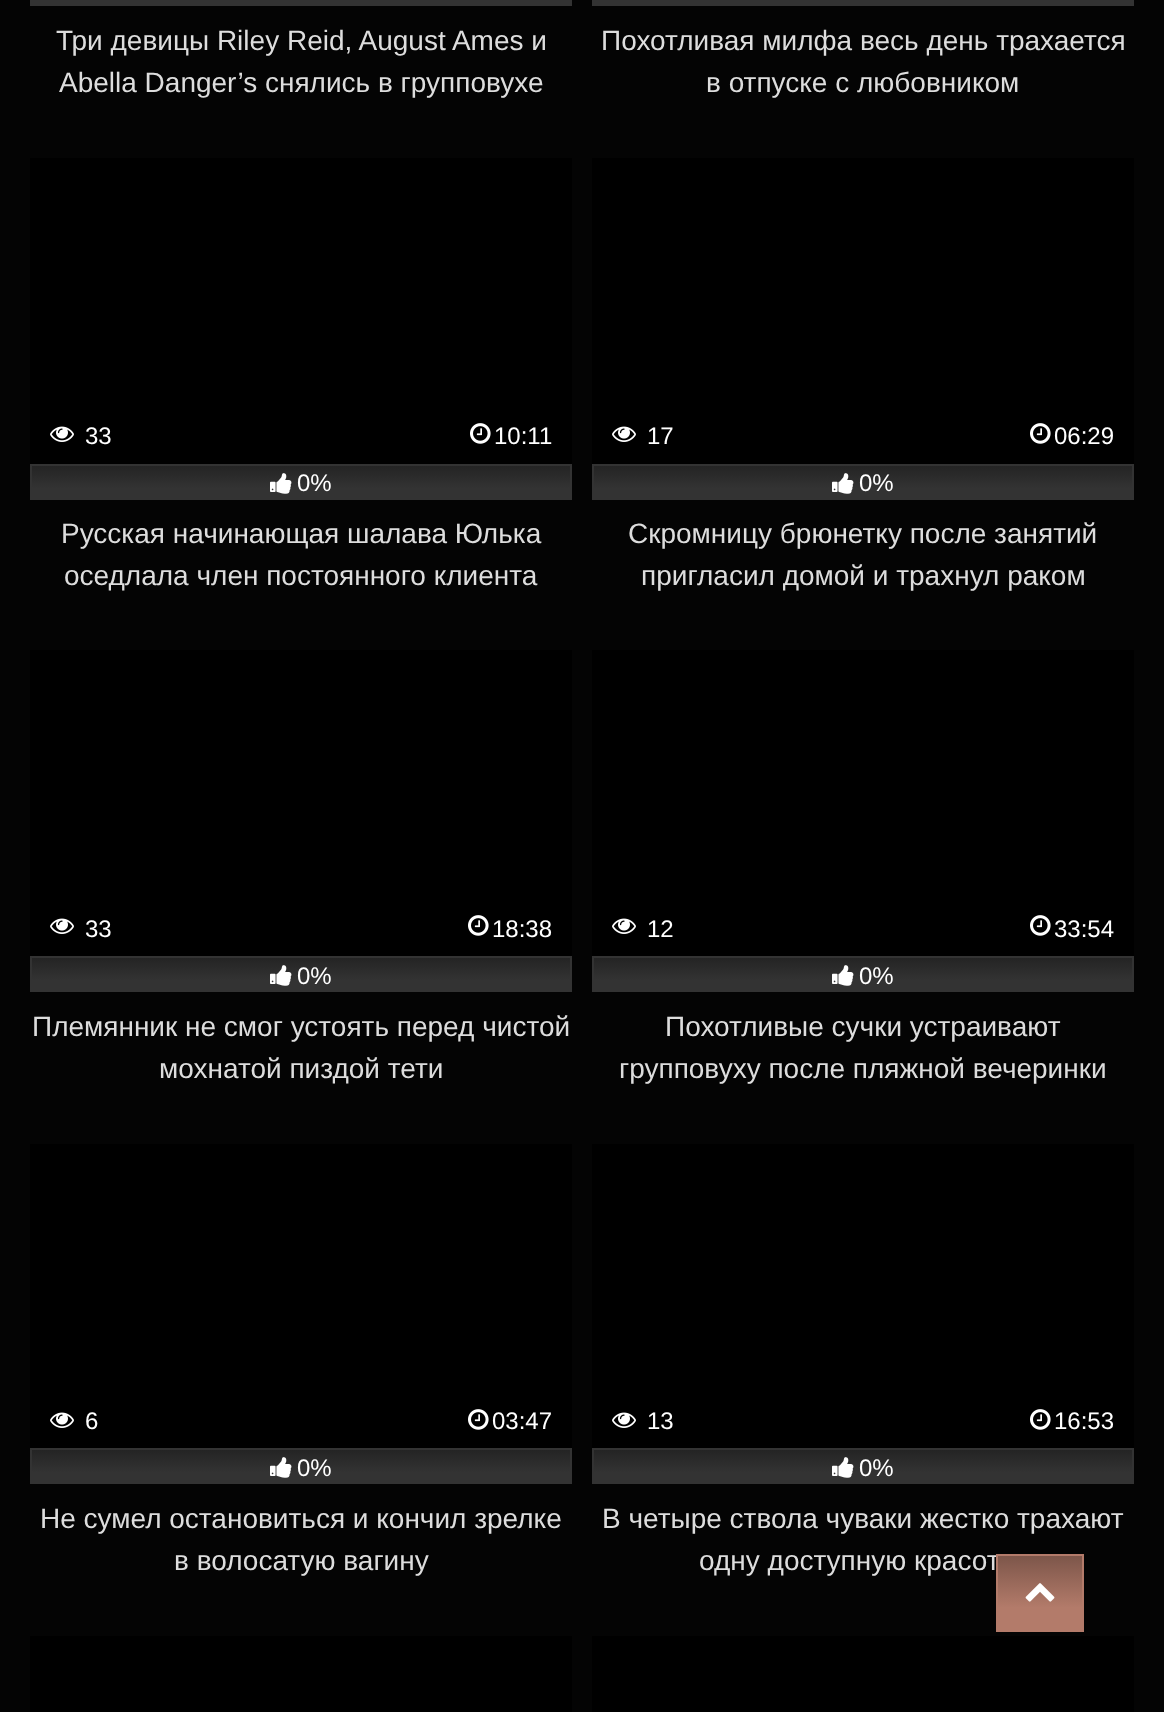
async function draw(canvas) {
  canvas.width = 1164;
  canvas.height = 1712;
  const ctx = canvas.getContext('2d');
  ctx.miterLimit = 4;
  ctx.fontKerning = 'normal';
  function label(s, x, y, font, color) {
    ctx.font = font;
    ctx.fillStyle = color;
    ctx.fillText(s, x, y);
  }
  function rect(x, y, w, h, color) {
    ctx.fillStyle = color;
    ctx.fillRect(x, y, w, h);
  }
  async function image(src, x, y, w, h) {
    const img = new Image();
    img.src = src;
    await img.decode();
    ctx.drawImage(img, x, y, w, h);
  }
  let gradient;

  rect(0, 0, 1164, 1712, '#040404');
  ctx.fillStyle = '#333';
  ctx.beginPath();
  ctx.rect(31, -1, 540, 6);
  ctx.fill();
  ctx.strokeStyle = '#333';
  ctx.lineWidth = 2;
  ctx.stroke();
  label('Три девицы Riley Reid, August Ames и', 56, 50, '28px Liberation Sans', '#ddd');
  label('Abella Danger’s снялись в групповухе', 59, 92, '28px Liberation Sans', '#ddd');
  ctx.fillStyle = '#333';
  ctx.beginPath();
  ctx.rect(593, -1, 540, 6);
  ctx.fill();
  ctx.stroke();
  label('Похотливая милфа весь день трахается', 601, 50, '28px Liberation Sans', '#ddd');
  label('в отпуске с любовником', 706, 92, '28px Liberation Sans', '#ddd');
  rect(30, 158, 542, 306, '#000');
  await image('assets/img1.png', 50, 426, 24, 16);
  label('33', 85, 444, '24px Liberation Sans', '#fff');
  await image('assets/img2.png', 470, 423, 21, 21);
  label('10:11', 494, 444, '24px Liberation Sans', '#fff');
  gradient = ctx.createLinearGradient(301, 466, 301, 498);
  gradient.addColorStop(0, '#242424');
  gradient.addColorStop(0.7, '#333');
  ctx.fillStyle = gradient;
  ctx.fillRect(32, 466, 538, 32);
  ctx.strokeRect(31, 465, 540, 34);
  await image('assets/img3.png', 270, 473, 22, 21);
  label('0%', 297, 491, '24px Liberation Sans', '#fff');
  label('Русская начинающая шалава Юлька', 61, 543, '28px Liberation Sans', '#ddd');
  label('оседлала член постоянного клиента', 64, 585, '28px Liberation Sans', '#ddd');
  rect(592, 158, 542, 306, '#000');
  await image('assets/img1.png', 612, 426, 24, 16);
  label('17', 647, 444, '24px Liberation Sans', '#fff');
  await image('assets/img2.png', 1030, 423, 21, 21);
  label('06:29', 1054, 444, '24px Liberation Sans', '#fff');
  gradient = ctx.createLinearGradient(863, 466, 863, 498);
  gradient.addColorStop(0, '#242424');
  gradient.addColorStop(0.7, '#333');
  ctx.fillStyle = gradient;
  ctx.fillRect(594, 466, 538, 32);
  ctx.strokeRect(593, 465, 540, 34);
  await image('assets/img3.png', 832, 473, 22, 21);
  label('0%', 859, 491, '24px Liberation Sans', '#fff');
  label('Скромницу брюнетку после занятий', 628, 543, '28px Liberation Sans', '#ddd');
  label('пригласил домой и трахнул раком', 641, 585, '28px Liberation Sans', '#ddd');
  rect(30, 650, 542, 306, '#000');
  await image('assets/img1.png', 50, 918, 24, 16);
  label('33', 85, 937, '24px Liberation Sans', '#fff');
  await image('assets/img2.png', 468, 915, 21, 21);
  label('18:38', 492, 937, '24px Liberation Sans', '#fff');
  gradient = ctx.createLinearGradient(301, 958, 301, 990);
  gradient.addColorStop(0, '#242424');
  gradient.addColorStop(0.7, '#333');
  ctx.fillStyle = gradient;
  ctx.fillRect(32, 958, 538, 32);
  ctx.strokeRect(31, 957, 540, 34);
  await image('assets/img3.png', 270, 965, 22, 21);
  label('0%', 297, 984, '24px Liberation Sans', '#fff');
  label('Племянник не смог устоять перед чистой', 32, 1036, '28px Liberation Sans', '#ddd');
  label('мохнатой пиздой тети', 159, 1078, '28px Liberation Sans', '#ddd');
  rect(592, 650, 542, 306, '#000');
  await image('assets/img1.png', 612, 918, 24, 16);
  label('12', 647, 937, '24px Liberation Sans', '#fff');
  await image('assets/img2.png', 1030, 915, 21, 21);
  label('33:54', 1054, 937, '24px Liberation Sans', '#fff');
  gradient = ctx.createLinearGradient(863, 958, 863, 990);
  gradient.addColorStop(0, '#242424');
  gradient.addColorStop(0.7, '#333');
  ctx.fillStyle = gradient;
  ctx.fillRect(594, 958, 538, 32);
  ctx.strokeRect(593, 957, 540, 34);
  await image('assets/img3.png', 832, 965, 22, 21);
  label('0%', 859, 984, '24px Liberation Sans', '#fff');
  label('Похотливые сучки устраивают', 665, 1036, '28px Liberation Sans', '#ddd');
  label('групповуху после пляжной вечеринки', 619, 1078, '28px Liberation Sans', '#ddd');
  rect(30, 1144, 542, 304, '#000');
  await image('assets/img1.png', 50, 1412, 24, 16);
  label('6', 85, 1429, '24px Liberation Sans', '#fff');
  await image('assets/img2.png', 468, 1409, 21, 21);
  label('03:47', 492, 1429, '24px Liberation Sans', '#fff');
  gradient = ctx.createLinearGradient(301, 1450, 301, 1482);
  gradient.addColorStop(0, '#242424');
  gradient.addColorStop(0.7, '#333');
  ctx.fillStyle = gradient;
  ctx.fillRect(32, 1450, 538, 32);
  ctx.strokeRect(31, 1449, 540, 34);
  await image('assets/img3.png', 270, 1457, 22, 21);
  label('0%', 297, 1476, '24px Liberation Sans', '#fff');
  label('Не сумел остановиться и кончил зрелке', 40, 1528, '28px Liberation Sans', '#ddd');
  label('в волосатую вагину', 174, 1570, '28px Liberation Sans', '#ddd');
  rect(592, 1144, 542, 304, '#000');
  await image('assets/img1.png', 612, 1412, 24, 16);
  label('13', 647, 1429, '24px Liberation Sans', '#fff');
  await image('assets/img2.png', 1030, 1409, 21, 21);
  label('16:53', 1054, 1429, '24px Liberation Sans', '#fff');
  gradient = ctx.createLinearGradient(863, 1450, 863, 1482);
  gradient.addColorStop(0, '#242424');
  gradient.addColorStop(0.7, '#333');
  ctx.fillStyle = gradient;
  ctx.fillRect(594, 1450, 538, 32);
  ctx.strokeRect(593, 1449, 540, 34);
  await image('assets/img3.png', 832, 1457, 22, 21);
  label('0%', 859, 1476, '24px Liberation Sans', '#fff');
  label('В четыре ствола чуваки жестко трахают', 602, 1528, '28px Liberation Sans', '#ddd');
  label('одну доступную красот', 699, 1570, '28px Liberation Sans', '#ddd');
  rect(30, 1636, 542, 76, '#000');
  rect(592, 1636, 542, 76, '#000');
  gradient = ctx.createLinearGradient(1040, 1556, 1040, 1630);
  gradient.addColorStop(0, '#7d564a');
  gradient.addColorStop(0.7, '#b37b6a');
  ctx.fillStyle = gradient;
  ctx.fillRect(998, 1556, 84, 74);
  ctx.strokeStyle = '#b37b6a';
  ctx.strokeRect(997, 1555, 86, 76);
  await image('assets/img4.png', 1025, 1583, 30, 19);
}

draw(document.querySelector('canvas'));
